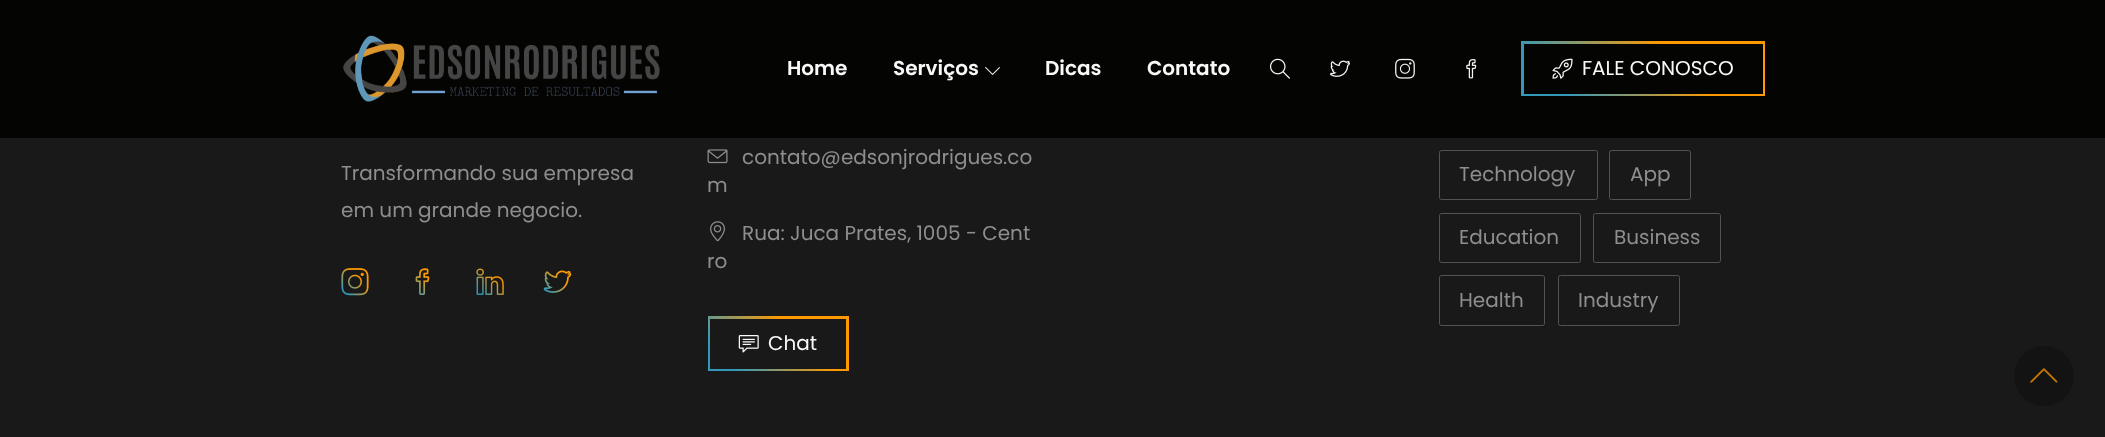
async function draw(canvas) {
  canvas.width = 2105;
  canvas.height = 437;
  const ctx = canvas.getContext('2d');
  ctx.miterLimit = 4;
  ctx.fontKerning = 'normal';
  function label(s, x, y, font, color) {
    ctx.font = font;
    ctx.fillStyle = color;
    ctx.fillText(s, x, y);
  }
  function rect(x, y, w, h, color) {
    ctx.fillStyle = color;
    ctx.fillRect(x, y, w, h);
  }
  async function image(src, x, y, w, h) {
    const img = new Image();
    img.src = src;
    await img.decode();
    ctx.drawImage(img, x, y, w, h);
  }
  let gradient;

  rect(0, 0, 2105, 437, '#191919');
  rect(0, 0, 2105, 138, '#040402');
  await image('assets/img1.png', 343, 35, 317, 67);
  label('Home', 787, 75, '600 20px Poppins', '#f9f9f9');
  label('Serviços', 893, 75, '600 20px Poppins', '#f9f9f9');
  await image('assets/img2.png', 985, 67, 15, 8);
  label('Dicas', 1045, 75, '600 20px Poppins', '#f9f9f9');
  label('Contato', 1147, 75, '600 20px Poppins', '#f9f9f9');
  await image('assets/img3.png', 1269, 58, 21, 21);
  await image('assets/img4.png', 1330, 60, 20, 17);
  await image('assets/img5.png', 1395, 58, 20, 21);
  await image('assets/img6.png', 1466, 59, 11, 20);
  gradient = ctx.createLinearGradient(1568, 143, 1718, -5.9);
  gradient.addColorStop(0.15, '#3299bb');
  gradient.addColorStop(0.65, '#f90');
  ctx.fillStyle = gradient;
  ctx.fillRect(1521, 41, 244, 55);
  rect(1524, 44, 239, 50, '#040402');
  await image('assets/img7.png', 1552, 58, 21, 21);
  label('FALE CONOSCO', 1582, 75, '20px Poppins', '#f9f9f9');
  label('Transformando sua empresa', 341, 180, '20px Poppins', '#8e8e8e');
  label('em um grande negocio.', 341, 217, '20px Poppins', '#8e8e8e');
  await image('assets/img8.png', 341, 268, 28, 28);
  await image('assets/img9.png', 415, 268, 15, 27);
  await image('assets/img10.png', 476, 268, 28, 27);
  await image('assets/img11.png', 543, 270, 29, 23);
  await image('assets/img12.png', 707, 149, 21, 15);
  label('contato@edsonjrodrigues.co', 742, 164, '20px Poppins', '#8e8e8e');
  label('m', 707, 192, '20px Poppins', '#8e8e8e');
  await image('assets/img13.png', 710, 221, 15, 21);
  label('Rua: Juca Prates, 1005 - Cent', 742, 240, '20px Poppins', '#8e8e8e');
  label('ro', 707, 268, '20px Poppins', '#8e8e8e');
  gradient = ctx.createLinearGradient(729, 393, 827, 295);
  gradient.addColorStop(0.15, '#3299bb');
  gradient.addColorStop(0.65, '#f90');
  ctx.fillStyle = gradient;
  ctx.fillRect(708, 316, 141, 55);
  rect(710, 319, 136, 50, '#191919');
  await image('assets/img14.png', 738, 335, 21, 18);
  label('Chat', 768, 350, '20px Poppins', '#f9f9f9');
  ctx.beginPath();
  ctx.roundRect(1439.5, 150.5, 158, 49, 2);
  ctx.strokeStyle = '#535353';
  ctx.stroke();
  label('Technology', 1459, 181, '20px Poppins', '#8e8e8e');
  ctx.beginPath();
  ctx.roundRect(1609.5, 150.5, 81, 49, 2);
  ctx.stroke();
  label('App', 1630, 181, '20px Poppins', '#8e8e8e');
  ctx.beginPath();
  ctx.roundRect(1439.5, 213.5, 141, 49, 2);
  ctx.stroke();
  label('Education', 1459, 244, '20px Poppins', '#8e8e8e');
  ctx.beginPath();
  ctx.roundRect(1593.5, 213.5, 127, 49, 2);
  ctx.stroke();
  label('Business', 1614, 244, '20px Poppins', '#8e8e8e');
  ctx.beginPath();
  ctx.roundRect(1439.5, 275.5, 105, 50, 2);
  ctx.stroke();
  label('Health', 1459, 307, '20px Poppins', '#8e8e8e');
  ctx.beginPath();
  ctx.roundRect(1558.5, 275.5, 121, 50, 2);
  ctx.stroke();
  label('Industry', 1578, 307, '20px Poppins', '#8e8e8e');
  ctx.fillStyle = '#131313';
  ctx.beginPath();
  ctx.arc(2044, 376, 30, 0, 2 * Math.PI);
  ctx.fill();
  await image('assets/img15.png', 2030, 368, 28, 15);
}

draw(document.querySelector('canvas'));
